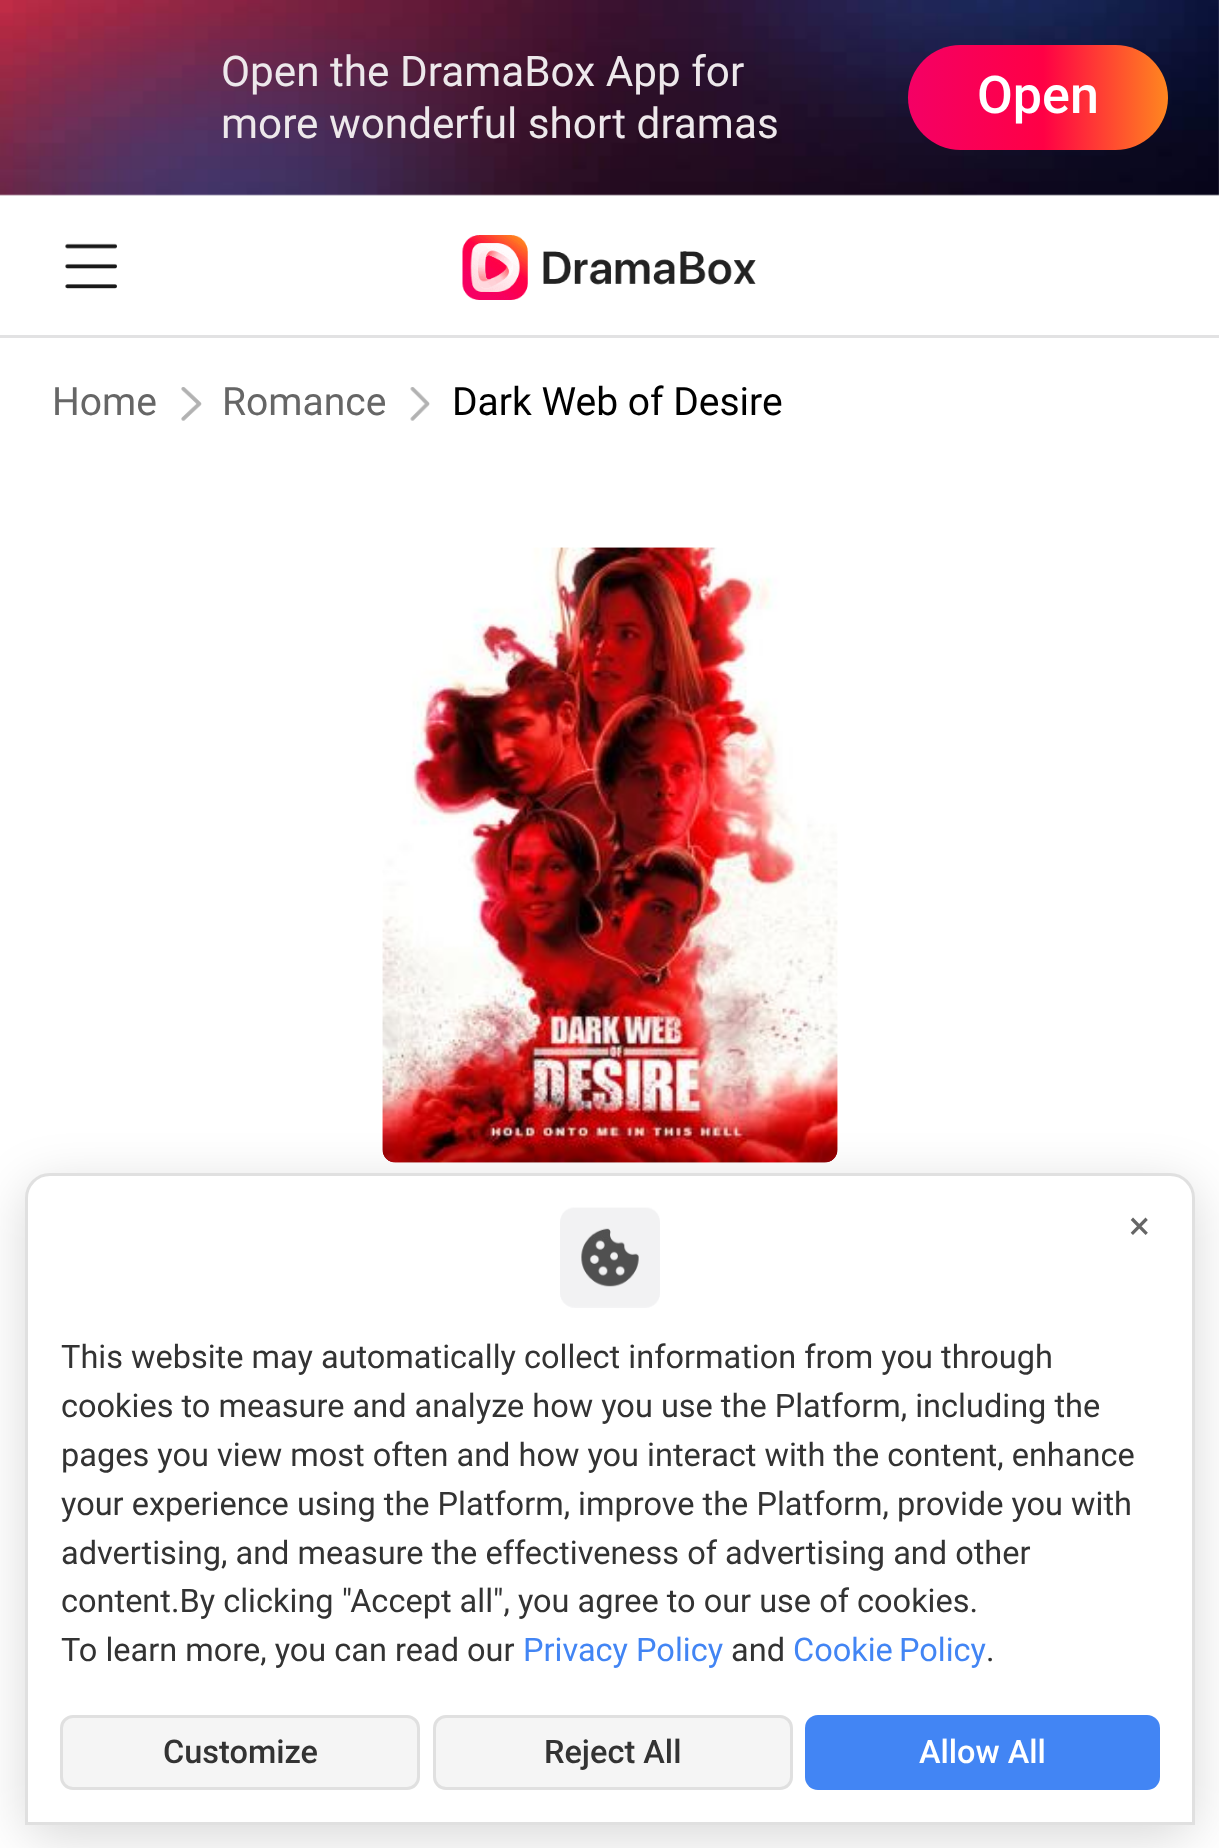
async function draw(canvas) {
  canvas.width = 1219;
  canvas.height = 1848;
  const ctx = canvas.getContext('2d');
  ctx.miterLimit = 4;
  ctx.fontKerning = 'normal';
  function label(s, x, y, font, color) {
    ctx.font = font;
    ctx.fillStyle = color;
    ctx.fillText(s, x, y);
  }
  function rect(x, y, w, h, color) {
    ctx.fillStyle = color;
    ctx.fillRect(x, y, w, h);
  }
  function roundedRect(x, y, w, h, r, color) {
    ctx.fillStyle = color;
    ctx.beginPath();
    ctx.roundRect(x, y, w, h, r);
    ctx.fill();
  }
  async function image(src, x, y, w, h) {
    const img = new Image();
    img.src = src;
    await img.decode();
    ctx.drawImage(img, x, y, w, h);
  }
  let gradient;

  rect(0, 0, 1219, 1848, '#fff');
  await image('assets/img1.png', 0, 0, 1219, 196);
  label('Open the DramaBox App for', 221, 86, '42.25px Roboto', '#ede8eb');
  label('more wonderful short dramas', 221, 138, '42.25px Roboto', '#ede8eb');
  gradient = ctx.createLinearGradient(1168, 97, 908, 98);
  gradient.addColorStop(0, '#ff871f');
  gradient.addColorStop(0.48, '#ff0045');
  gradient.addColorStop(1, '#f40065');
  ctx.fillStyle = gradient;
  ctx.beginPath();
  ctx.roundRect(908, 45, 260, 105, 52.5);
  ctx.fill();
  label('Open', 977, 113, '500 52px Roboto', '#fff');
  rect(0, 335, 1219, 3, '#e2e2e3');
  await image('assets/img2.png', 65, 243, 52, 46);
  await image('assets/img3.png', 462, 235, 294, 65);
  label('Home', 52, 415, '39px Roboto', '#666');
  await image('assets/img4.png', 181, 387, 21, 34);
  label('Romance', 222, 415, '39px Roboto', '#666');
  await image('assets/img5.png', 410, 387, 20, 34);
  label('Dark Web of Desire', 452, 415, '39px Roboto', '#000');
  await image('assets/img6.png', 382, 547, 456, 616);
  await image('assets/img7.png', 382, 547, 456, 616);
  ctx.fillStyle = '#00000026';
  ctx.filter = 'blur(26px)';
  ctx.beginPath();
  ctx.roundRect(25, 1185, 1170, 653, 25);
  ctx.fill();
  ctx.filter = 'none';
  ctx.fillStyle = '#fff';
  ctx.beginPath();
  ctx.roundRect(26.5, 1174.5, 1167, 649, [23.5, 23.5, 0, 0]);
  ctx.fill();
  ctx.strokeStyle = '#e0e0e0';
  ctx.lineWidth = 3;
  ctx.stroke();
  await image('assets/img8.png', 560, 1207, 100, 101);
  label('×', 1129, 1239, '39px Roboto', '#666');
  label('This website may automatically collect information from you through', 61, 1368, '32.5px Roboto', '#333');
  label('cookies to measure and analyze how you use the Platform, including the', 61, 1417, '32.5px Roboto', '#333');
  label('pages you view most often and how you interact with the content, enhance', 61, 1466, '32.5px Roboto', '#333');
  label('your experience using the Platform, improve the Platform, provide you with', 61, 1515, '32.5px Roboto', '#333');
  label('advertising, and measure the effectiveness of advertising and other', 61, 1564, '32.5px Roboto', '#333');
  label('content.By clicking "Accept all", you agree to our use of cookies.', 61, 1612, '32.5px Roboto', '#333');
  label('To learn more, you can read our', 61, 1661, '32.5px Roboto', '#333');
  label('Privacy Policy', 523, 1661, '32.5px Roboto', '#4285f4');
  label('and', 731, 1661, '32.5px Roboto', '#333');
  ctx.wordSpacing = '-2px';
  label('Cookie Policy', 793, 1661, '32.5px Roboto', '#4285f4');
  ctx.wordSpacing = '0px';
  label('.', 986, 1661, '32.5px Roboto', '#333');
  ctx.fillStyle = '#f5f5f5';
  ctx.beginPath();
  ctx.roundRect(61.5, 1716.5, 357, 72, 11.5);
  ctx.fill();
  ctx.stroke();
  label('Customize', 163, 1763, '500 32.5px Roboto', '#333');
  ctx.fillStyle = '#f5f5f5';
  ctx.beginPath();
  ctx.roundRect(434.5, 1716.5, 357, 72, 11.5);
  ctx.fill();
  ctx.stroke();
  label('Reject All', 544, 1763, '500 32.5px Roboto', '#333');
  roundedRect(805, 1715, 355, 75, 13, '#4285f4');
  label('Allow All', 919, 1763, '500 32.5px Roboto', '#fff');
}

draw(document.querySelector('canvas'));
